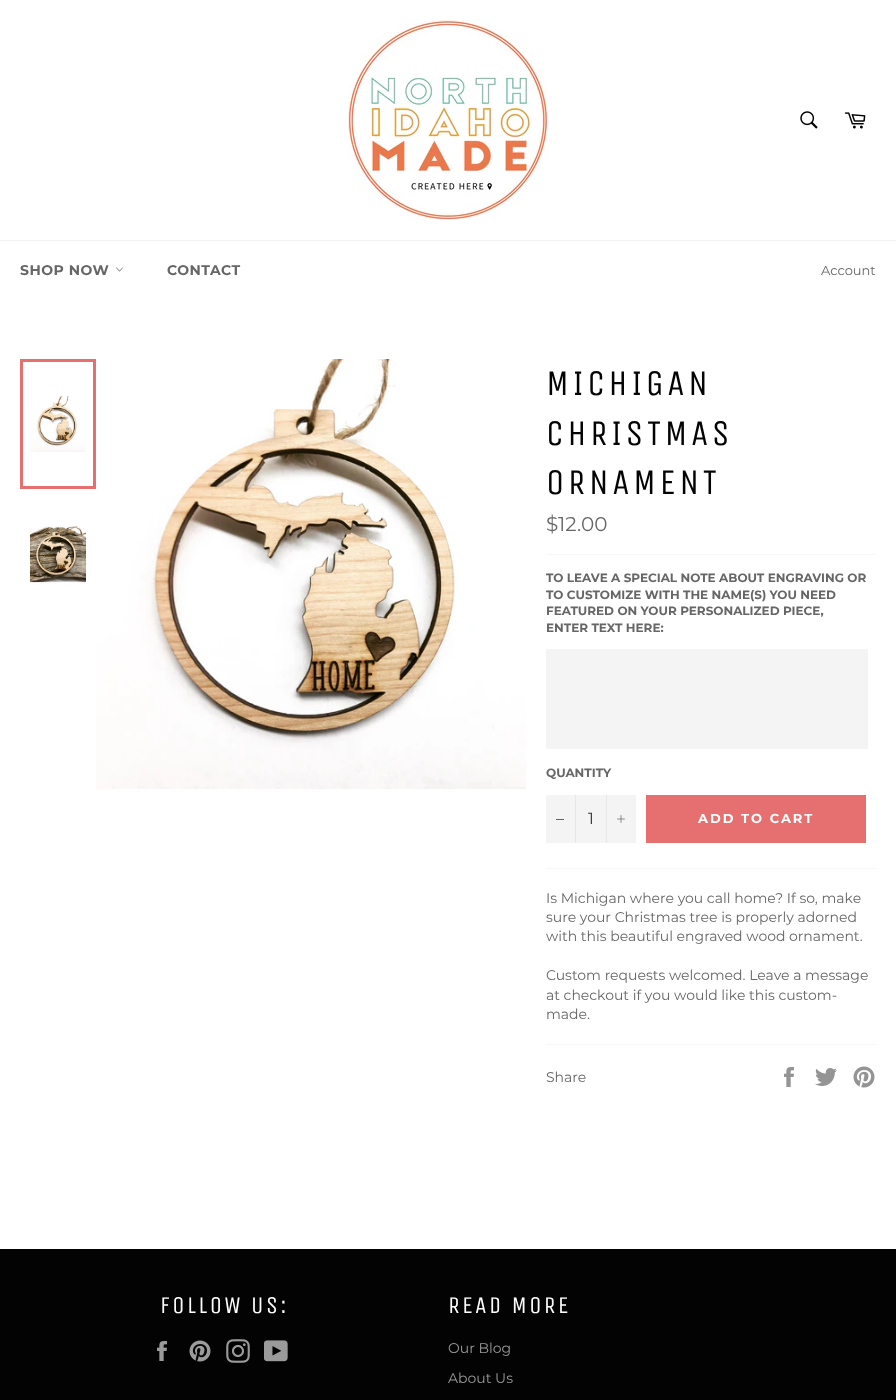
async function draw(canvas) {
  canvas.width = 896;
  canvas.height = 1400;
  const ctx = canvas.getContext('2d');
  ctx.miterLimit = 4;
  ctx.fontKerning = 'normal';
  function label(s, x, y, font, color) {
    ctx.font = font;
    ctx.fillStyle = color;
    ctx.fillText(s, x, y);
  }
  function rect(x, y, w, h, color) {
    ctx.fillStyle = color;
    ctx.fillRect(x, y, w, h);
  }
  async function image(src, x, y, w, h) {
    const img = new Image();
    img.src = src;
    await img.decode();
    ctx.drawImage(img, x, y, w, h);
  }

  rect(0, 0, 896, 1400, '#fff');
  await image('assets/img1.png', 348, 20, 200, 200);
  await image('assets/img2.png', 800, 111, 18, 18);
  await image('assets/img3.png', 844, 112, 22, 17);
  rect(0, 240, 896, 1, '#f2f2f2');
  ctx.letterSpacing = '0.5px';
  label('SHOP NOW', 20, 275, 'bold 14px Montserrat', '#666');
  await image('assets/img4.png', 116, 267, 7, 5);
  label('CONTACT', 167, 275, 'bold 14px Montserrat', '#666');
  ctx.letterSpacing = '0px';
  label('Account', 821, 275, '13px Montserrat', '#666');
  await image('assets/img5.png', 30, 396, 56, 56);
  ctx.strokeStyle = '#e67070';
  ctx.lineWidth = 3;
  ctx.strokeRect(21.5, 360.5, 73, 127);
  await image('assets/img6.png', 30, 526, 56, 57);
  await image('assets/img7.png', 96, 359, 430, 430);
  ctx.letterSpacing = '3.5px';
  label('MICHIGAN', 546, 395, '36px Unica One', '#030303');
  label('CHRISTMAS', 546, 445, '36px Unica One', '#030303');
  label('ORNAMENT', 546, 494, '36px Unica One', '#030303');
  ctx.letterSpacing = '0px';
  label('$12.00', 546, 531, '20px Montserrat', '#666');
  rect(546, 554, 330, 1, '#f7f7f7');
  label('TO LEAVE A SPECIAL NOTE ABOUT ENGRAVING OR', 546, 582, 'bold 12px Montserrat', '#666');
  label('TO CUSTOMIZE WITH THE NAME(S) YOU NEED', 546, 599, 'bold 12px Montserrat', '#666');
  label('FEATURED ON YOUR PERSONALIZED PIECE,', 546, 615, 'bold 12px Montserrat', '#666');
  label('ENTER TEXT HERE:', 546, 632, 'bold 12px Montserrat', '#666');
  rect(546, 649, 322, 100, '#f4f4f4');
  label('QUANTITY', 546, 777, 'bold 12px Montserrat', '#666');
  rect(546, 795, 90, 48, '#f4f4f4');
  rect(575, 795, 1, 48, '#e7e7e7');
  rect(556, 819, 8, 1, '#666');
  label('1', 588, 824, '16px Montserrat', '#333');
  rect(606, 795, 1, 48, '#e7e7e7');
  await image('assets/img8.png', 617, 815, 8, 8);
  rect(646, 795, 220, 48, '#e67070');
  ctx.letterSpacing = '2px';
  label('ADD TO CART', 698, 823, 'bold 13px Montserrat', '#fff');
  rect(546, 868, 330, 1, '#f7f7f7');
  ctx.letterSpacing = '0px';
  label('Is Michigan where you call home? If so, make', 546, 903, '14px Montserrat', '#666');
  label('sure your Christmas tree is properly adorned', 546, 922, '14px Montserrat', '#666');
  label('with this beautiful engraved wood ornament.', 546, 941, '14px Montserrat', '#666');
  label('Custom requests welcomed. Leave a message', 546, 980, '14px Montserrat', '#666');
  label('at checkout if you would like this custom-', 546, 1000, '14px Montserrat', '#666');
  label('made.', 546, 1019, '14px Montserrat', '#666');
  rect(546, 1044, 330, 1, '#f7f7f7');
  label('Share', 546, 1082, '14px Montserrat', '#666');
  await image('assets/img9.png', 784, 1067, 10, 20);
  await image('assets/img10.png', 815, 1068, 22, 18);
  await image('assets/img11.png', 853, 1066, 22, 22);
  rect(0, 1249, 896, 151, '#030303');
  ctx.letterSpacing = '2.4px';
  label('FOLLOW US:', 160, 1313, '24px Unica One', '#fff');
  await image('assets/img12.png', 157, 1341, 10, 20);
  await image('assets/img13.png', 189, 1340, 22, 22);
  await image('assets/img14.png', 226, 1339, 24, 24);
  await image('assets/img15.png', 264, 1340, 24, 22);
  label('READ MORE', 448, 1313, '24px Unica One', '#fff');
  ctx.letterSpacing = '0px';
  label('Our Blog', 448, 1353, '14px Montserrat', '#9a9a9a');
  label('About Us', 448, 1383, '14px Montserrat', '#9a9a9a');
}

draw(document.querySelector('canvas'));
